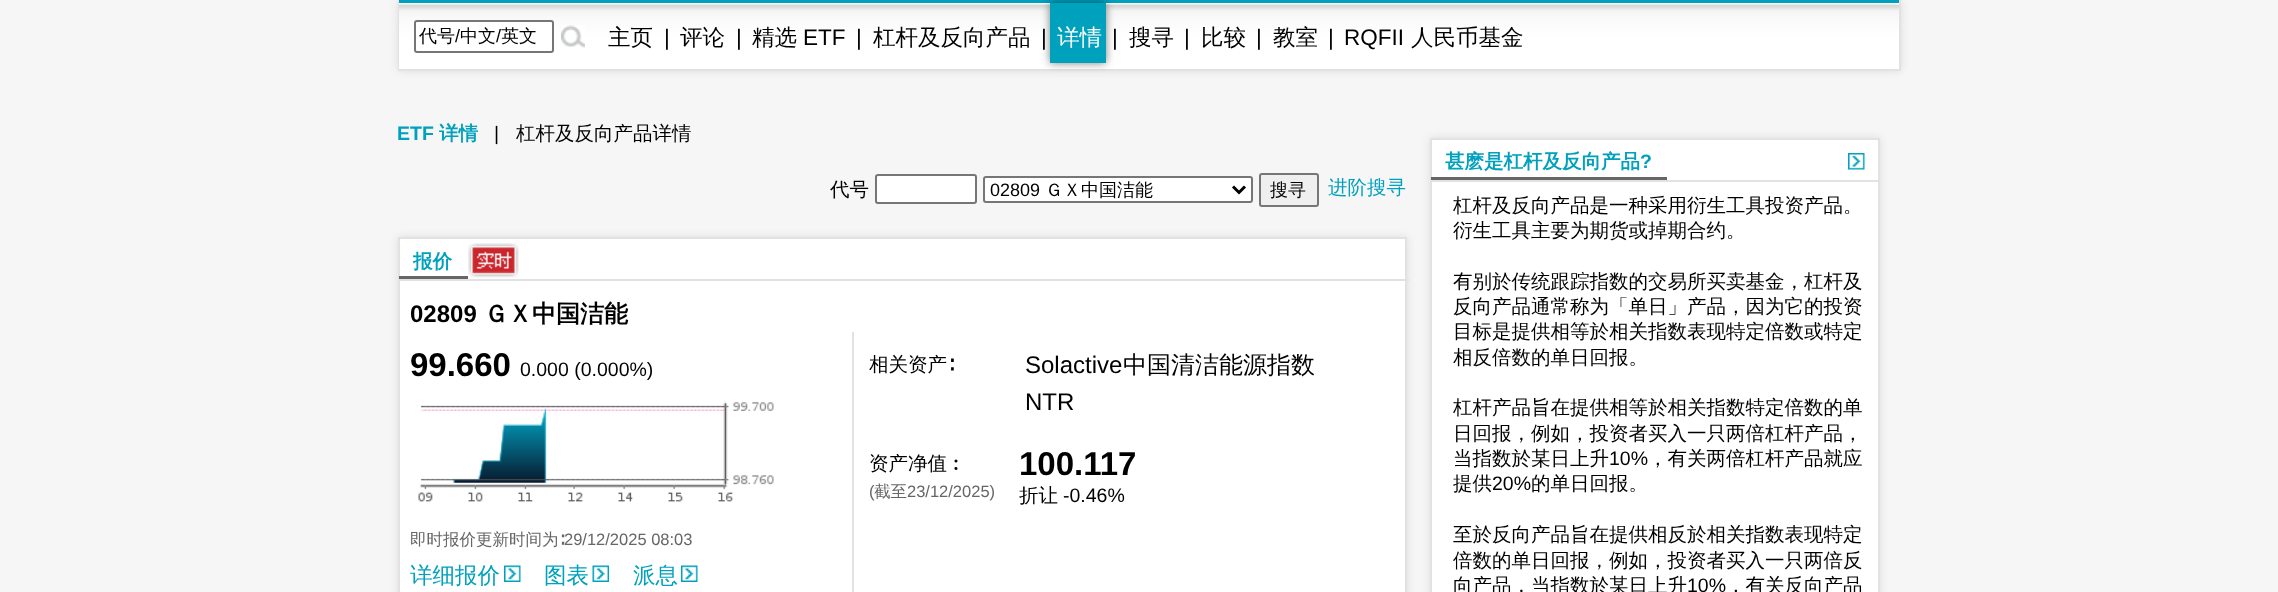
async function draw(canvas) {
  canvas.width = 2278;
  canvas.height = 592;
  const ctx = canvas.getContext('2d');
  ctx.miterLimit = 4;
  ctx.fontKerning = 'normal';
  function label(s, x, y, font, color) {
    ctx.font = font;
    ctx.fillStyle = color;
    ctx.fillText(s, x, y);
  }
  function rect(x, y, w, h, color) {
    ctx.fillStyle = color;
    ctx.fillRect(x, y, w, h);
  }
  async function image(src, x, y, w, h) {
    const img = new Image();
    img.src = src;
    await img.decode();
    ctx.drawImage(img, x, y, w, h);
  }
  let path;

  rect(0, 0, 2278, 592, '#f6f6f6');
  ctx.fillStyle = '#0000001a';
  ctx.filter = 'blur(4px)';
  ctx.beginPath();
  ctx.rect(398, 0, 1503, 71);
  ctx.fill();
  ctx.filter = 'none';
  rect(1899, 0, 2, 71, '#e2e2e2');
  rect(398, 69, 1503, 2, '#e2e2e2');
  rect(398, 0, 2, 71, '#e2e2e2');
  rect(399, 0, 1500, 3, '#00a1bd');
  await image('assets/img1.png', 399, 3, 1500, 66);
  ctx.fillStyle = '#fff';
  ctx.beginPath();
  ctx.roundRect(415, 21, 138, 31, 2);
  ctx.fill();
  ctx.strokeStyle = '#767676';
  ctx.lineWidth = 2;
  ctx.stroke();
  label('代号', 419, 42, '500 18px WenQuanYi Zen Hei', '#000');
  label('/', 455, 42, '18px Liberation Sans', '#000');
  label('中文', 460, 42, '500 18px WenQuanYi Zen Hei', '#000');
  label('/', 496, 42, '18px Liberation Sans', '#000');
  label('英文', 501, 42, '500 18px WenQuanYi Zen Hei', '#000');
  await image('assets/img2.png', 561, 25, 24, 23);
  label('主页', 608, 45, '500 22.5px WenQuanYi Zen Hei', '#000');
  label('|', 664, 45, '22.5px Liberation Sans', '#000');
  label('评论', 680, 45, '500 22.5px WenQuanYi Zen Hei', '#000');
  label('|', 736, 45, '22.5px Liberation Sans', '#000');
  label('精选', 752, 45, '500 22.5px WenQuanYi Zen Hei', '#000');
  label('ETF', 803, 45, '22.5px Liberation Sans', '#000');
  label('|', 856, 45, '22.5px Liberation Sans', '#000');
  label('杠杆及反向产品', 873, 45, '500 22.5px WenQuanYi Zen Hei', '#000');
  label('|', 1041, 45, '22.5px Liberation Sans', '#000');
  ctx.fillStyle = '#00000080';
  ctx.filter = 'blur(4px)';
  ctx.beginPath();
  ctx.rect(1050, 3, 56, 60);
  ctx.fill();
  ctx.filter = 'none';
  rect(1050, 3, 56, 60, '#00a1bd');
  label('详情', 1057, 45, '500 22.5px WenQuanYi Zen Hei', '#fff');
  label('|', 1112, 45, '22.5px Liberation Sans', '#000');
  label('搜寻', 1129, 45, '500 22.5px WenQuanYi Zen Hei', '#000');
  label('|', 1184, 45, '22.5px Liberation Sans', '#000');
  label('比较', 1201, 45, '500 22.5px WenQuanYi Zen Hei', '#000');
  label('|', 1256, 45, '22.5px Liberation Sans', '#000');
  label('教室', 1273, 45, '500 22.5px WenQuanYi Zen Hei', '#000');
  label('|', 1328, 45, '22.5px Liberation Sans', '#000');
  label('RQFII', 1344, 45, '22.5px Liberation Sans', '#000');
  label('人民币基金', 1411, 45, '500 22.5px WenQuanYi Zen Hei', '#000');
  label('ETF', 397, 140, 'bold 19.5px Liberation Sans', '#00a1bd');
  label('详情', 439, 140, 'bold 19.5px WenQuanYi Zen Hei', '#00a1bd');
  label('|', 494, 140, '19.5px Liberation Sans', '#000');
  label('杠杆及反向产品详情', 516, 140, '500 19.5px WenQuanYi Zen Hei', '#000');
  label('代号', 830, 196, '500 19.5px WenQuanYi Zen Hei', '#000');
  ctx.fillStyle = '#fff';
  ctx.beginPath();
  ctx.roundRect(876, 175, 100, 28, 2);
  ctx.fill();
  ctx.stroke();
  ctx.beginPath();
  ctx.roundRect(984, 177, 268, 25, 2);
  ctx.fill();
  ctx.stroke();
  path = new Path2D('M1233 186.5L1239 192.5L1245 186.5');
  ctx.strokeStyle = '#000';
  ctx.lineWidth = 3;
  ctx.stroke(path);
  label('02809', 990, 196, '18px Liberation Sans', '#000');
  label('ＧＸ中国洁能', 1045, 196, '500 18px WenQuanYi Zen Hei', '#000');
  ctx.fillStyle = '#efefef';
  ctx.beginPath();
  ctx.roundRect(1260, 174, 58, 32, 2);
  ctx.fill();
  ctx.strokeStyle = '#767676';
  ctx.lineWidth = 2;
  ctx.stroke();
  label('搜寻', 1270, 196, '500 18px WenQuanYi Zen Hei', '#000');
  label('进阶搜寻', 1328, 194, '500 19.5px WenQuanYi Zen Hei', '#00a1bd');
  ctx.fillStyle = '#0000001a';
  ctx.filter = 'blur(4px)';
  ctx.beginPath();
  ctx.rect(398, 237, 1009, 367);
  ctx.fill();
  ctx.filter = 'none';
  ctx.fillStyle = '#fff';
  ctx.beginPath();
  ctx.rect(399, 238, 1007, 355);
  ctx.fill();
  ctx.strokeStyle = '#e2e2e2';
  ctx.stroke();
  rect(399, 279, 1010, 2, '#e2e2e2');
  rect(399, 276, 69, 3, '#666');
  label('报价', 413, 268, 'bold 19.5px WenQuanYi Zen Hei', '#00a1bd');
  await image('assets/img3.png', 468, 243, 51, 35);
  label('02809', 410, 322, 'bold 24px Liberation Sans', '#000');
  label('ＧＸ中国洁能', 484, 322, 'bold 24px WenQuanYi Zen Hei', '#000');
  rect(852, 332, 2, 260, '#e2e2e2');
  label('99.660', 410, 376, 'bold 33px Liberation Sans', '#000');
  label('0.000 (0.000%)', 520, 376, '19.5px Liberation Sans', '#000');
  await image('assets/img4.png', 418, 402, 356, 100);
  label('即时报价更新时间为∶', 410, 545, '500 16.5px WenQuanYi Zen Hei', '#666');
  label('29/12/2025 08:03', 564, 545, '16.5px Liberation Sans', '#666');
  label('详细报价', 410, 583, '500 22.5px WenQuanYi Zen Hei', '#00a1bd');
  await image('assets/img5.png', 504, 565, 17, 17);
  label('图表', 544, 583, '500 22.5px WenQuanYi Zen Hei', '#00a1bd');
  await image('assets/img6.png', 592, 565, 17, 17);
  label('派息', 633, 583, '500 22.5px WenQuanYi Zen Hei', '#00a1bd');
  await image('assets/img7.png', 681, 565, 17, 17);
  label('相关资产∶', 869, 371, '500 19.5px WenQuanYi Zen Hei', '#000');
  label('Solactive', 1025, 373, '24px Liberation Sans', '#000');
  label('中国清洁能源指数', 1123, 373, '500 24px WenQuanYi Zen Hei', '#000');
  label('NTR', 1025, 410, '24px Liberation Sans', '#000');
  label('资产净值︰', 869, 470, '500 19.5px WenQuanYi Zen Hei', '#000');
  label('(', 869, 497, '16.5px Liberation Sans', '#666');
  label('截至', 874, 497, '500 16.5px WenQuanYi Zen Hei', '#666');
  label('23/12/2025)', 907, 497, '16.5px Liberation Sans', '#666');
  label('100.117', 1019, 475, 'bold 33px Liberation Sans', '#000');
  label('折让', 1019, 502, '500 19.5px WenQuanYi Zen Hei', '#000');
  label('-0.46%', 1063, 502, '19.5px Liberation Sans', '#000');
  ctx.fillStyle = '#0000001a';
  ctx.filter = 'blur(4px)';
  ctx.beginPath();
  ctx.rect(1430, 138, 450, 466);
  ctx.fill();
  ctx.filter = 'none';
  ctx.fillStyle = '#fff';
  ctx.beginPath();
  ctx.rect(1431, 139, 448, 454);
  ctx.fill();
  ctx.stroke();
  rect(1431, 180, 447, 2, '#e2e2e2');
  rect(1431, 177, 236, 3, '#666');
  label('甚麽是杠杆及反向产品', 1445, 168, 'bold 19.5px WenQuanYi Zen Hei', '#00a1bd');
  label('?', 1640, 168, 'bold 19.5px Liberation Sans', '#00a1bd');
  await image('assets/img8.png', 1848, 153, 17, 17);
  label('杠杆及反向产品是一种采用衍生工具投资产品。', 1453, 212, '500 19.5px WenQuanYi Zen Hei', '#000');
  label('衍生工具主要为期货或掉期合约。', 1453, 237, '500 19.5px WenQuanYi Zen Hei', '#000');
  label('有别於传统跟踪指数的交易所买卖基金，杠杆及', 1453, 288, '500 19.5px WenQuanYi Zen Hei', '#000');
  label('反向产品通常称为「单日」产品，因为它的投资', 1453, 313, '500 19.5px WenQuanYi Zen Hei', '#000');
  label('目标是提供相等於相关指数表现特定倍数或特定', 1453, 338, '500 19.5px WenQuanYi Zen Hei', '#000');
  label('相反倍数的单日回报。', 1453, 364, '500 19.5px WenQuanYi Zen Hei', '#000');
  label('杠杆产品旨在提供相等於相关指数特定倍数的单', 1453, 414, '500 19.5px WenQuanYi Zen Hei', '#000');
  label('日回报，例如，投资者买入一只两倍杠杆产品，', 1453, 440, '500 19.5px WenQuanYi Zen Hei', '#000');
  label('当指数於某日上升', 1453, 465, '500 19.5px WenQuanYi Zen Hei', '#000');
  label('10%', 1609, 465, '19.5px Liberation Sans', '#000');
  label('，有关两倍杠杆产品就应', 1648, 465, '500 19.5px WenQuanYi Zen Hei', '#000');
  label('提供', 1453, 490, '500 19.5px WenQuanYi Zen Hei', '#000');
  label('20%', 1492, 490, '19.5px Liberation Sans', '#000');
  label('的单日回报。', 1531, 490, '500 19.5px WenQuanYi Zen Hei', '#000');
  label('至於反向产品旨在提供相反於相关指数表现特定', 1453, 541, '500 19.5px WenQuanYi Zen Hei', '#000');
  label('倍数的单日回报，例如，投资者买入一只两倍反', 1453, 567, '500 19.5px WenQuanYi Zen Hei', '#000');
  label('向产品，当指数於某日上升', 1453, 592, '500 19.5px WenQuanYi Zen Hei', '#000');
  label('10%', 1687, 592, '19.5px Liberation Sans', '#000');
  label('，有关反向产品', 1726, 592, '500 19.5px WenQuanYi Zen Hei', '#000');
}

draw(document.querySelector('canvas'));
